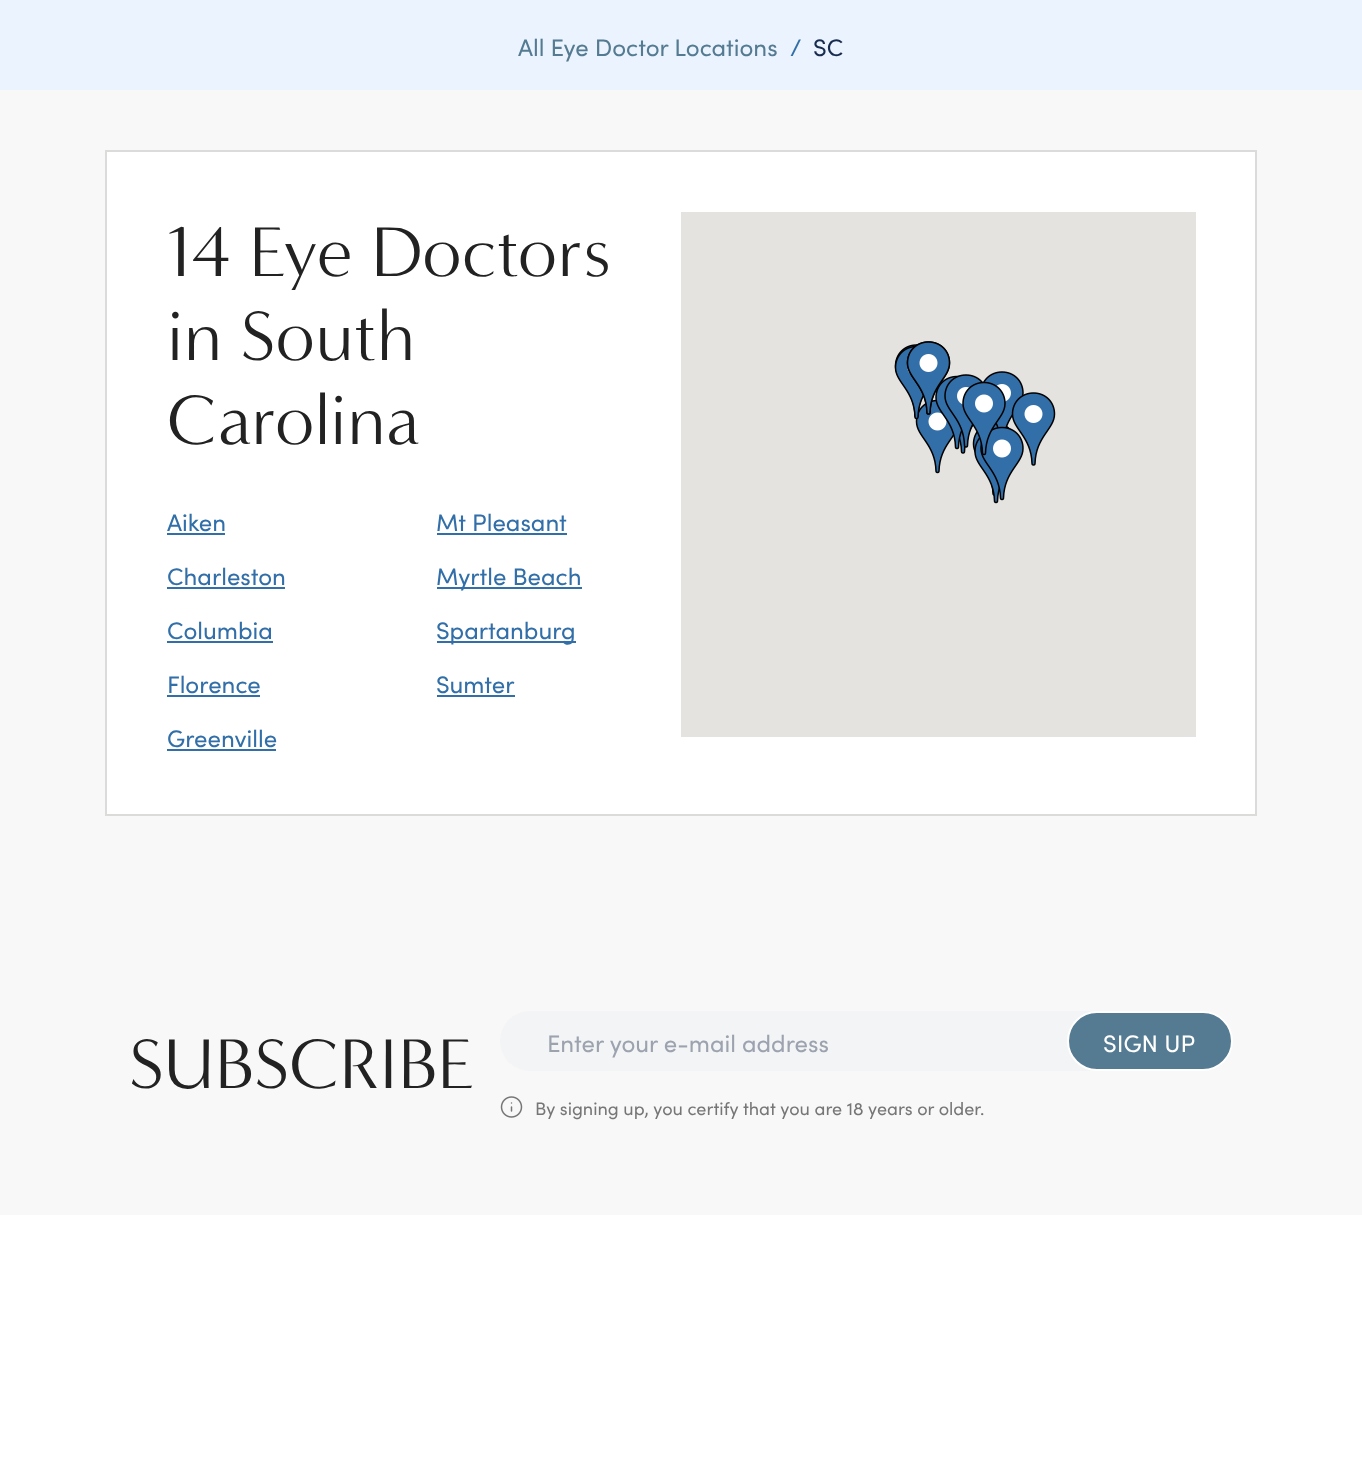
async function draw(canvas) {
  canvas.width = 1362;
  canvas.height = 1476;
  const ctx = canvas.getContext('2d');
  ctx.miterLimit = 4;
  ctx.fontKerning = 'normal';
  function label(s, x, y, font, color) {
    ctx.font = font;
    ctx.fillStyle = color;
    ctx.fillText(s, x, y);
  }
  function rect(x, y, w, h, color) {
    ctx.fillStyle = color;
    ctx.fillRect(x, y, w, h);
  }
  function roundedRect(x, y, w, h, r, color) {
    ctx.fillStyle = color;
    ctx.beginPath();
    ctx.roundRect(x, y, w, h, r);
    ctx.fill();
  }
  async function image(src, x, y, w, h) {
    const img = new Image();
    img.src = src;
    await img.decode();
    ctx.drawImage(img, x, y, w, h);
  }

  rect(0, 0, 1362, 1476, '#fff');
  rect(0, 90, 1362, 1125, '#f8f8f8');
  rect(0, 0, 1362, 90, '#ebf4fe');
  label('All Eye Doctor Locations', 518, 56, '24px Sofia', '#557b92');
  label('/', 790, 56, '24px Sofia', '#326fa8');
  label('SC', 813, 56, '24px Sofia', '#192c50');
  ctx.fillStyle = '#fff';
  ctx.beginPath();
  ctx.rect(106, 151, 1150, 664);
  ctx.fill();
  ctx.strokeStyle = '#dbdbd9';
  ctx.lineWidth = 2;
  ctx.stroke();
  ctx.letterSpacing = '0.4px';
  label('14 Eye Doctors', 167, 276, '72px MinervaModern', '#222');
  label('in South', 167, 360, '72px MinervaModern', '#222');
  label('Carolina', 167, 444, '72px MinervaModern', '#222');
  ctx.letterSpacing = '0px';
  label('Aiken', 167, 531, '24px Sofia', '#326fa8');
  rect(167, 533, 58, 2, '#326fa8');
  label('Mt Pleasant', 436, 531, '24px Sofia', '#326fa8');
  rect(437, 533, 130, 2, '#326fa8');
  label('Charleston', 167, 585, '24px Sofia', '#326fa8');
  rect(167, 587, 118, 2, '#326fa8');
  rect(437, 587, 145, 2, '#326fa8');
  label('Myrtle Beach', 436, 585, '24px Sofia', '#326fa8');
  label('Columbia', 167, 639, '24px Sofia', '#326fa8');
  rect(167, 641, 106, 2, '#326fa8');
  rect(437, 641, 139, 2, '#326fa8');
  label('Spartanburg', 436, 639, '24px Sofia', '#326fa8');
  label('Florence', 167, 693, '24px Sofia', '#326fa8');
  rect(167, 695, 93, 2, '#326fa8');
  label('Sumter', 436, 693, '24px Sofia', '#326fa8');
  rect(437, 695, 78, 2, '#326fa8');
  label('Greenville', 167, 747, '24px Sofia', '#326fa8');
  rect(167, 749, 109, 2, '#326fa8');
  rect(681, 212, 515, 525, '#e5e3df');
  await image('assets/img10.png', 915, 399, 39, 75);
  await image('assets/img3.png', 894, 344, 30, 74);
  await image('assets/img4.png', 894, 345, 30, 75);
  await image('assets/img12.png', 972, 424, 39, 72);
  await image('assets/img11.png', 959, 425, 14, 29);
  await image('assets/img7.png', 935, 375, 28, 75);
  await image('assets/img14.png', 974, 429, 26, 75);
  await image('assets/img5.png', 944, 374, 39, 74);
  await image('assets/img1.png', 906, 341, 45, 74);
  await image('assets/img2.png', 906, 341, 45, 74);
  await image('assets/img6.png', 983, 371, 41, 57);
  await image('assets/img13.png', 980, 426, 44, 75);
  await image('assets/img8.png', 962, 381, 44, 75);
  await image('assets/img9.png', 1011, 392, 45, 74);
  ctx.letterSpacing = '0.4px';
  label('SUBSCRIBE', 129, 1088, '72px MinervaModern', '#222');
  roundedRect(500, 1011, 733, 60, 30, '#f3f4f5');
  ctx.letterSpacing = '0px';
  label('Enter your e-mail address', 547, 1052, '24px Sofia', '#9ca3af');
  ctx.fillStyle = '#557b92';
  ctx.beginPath();
  ctx.roundRect(1068, 1012, 164, 58, 29);
  ctx.fill();
  ctx.strokeStyle = '#fff';
  ctx.stroke();
  label('SIGN UP', 1103, 1052, '24px Sofia', '#fff');
  await image('assets/img15.png', 500, 1096, 23, 22);
  label('By signing up, you certify that you are 18 years or older.', 535, 1115, '18px Sofia', '#767676');
}

draw(document.querySelector('canvas'));
